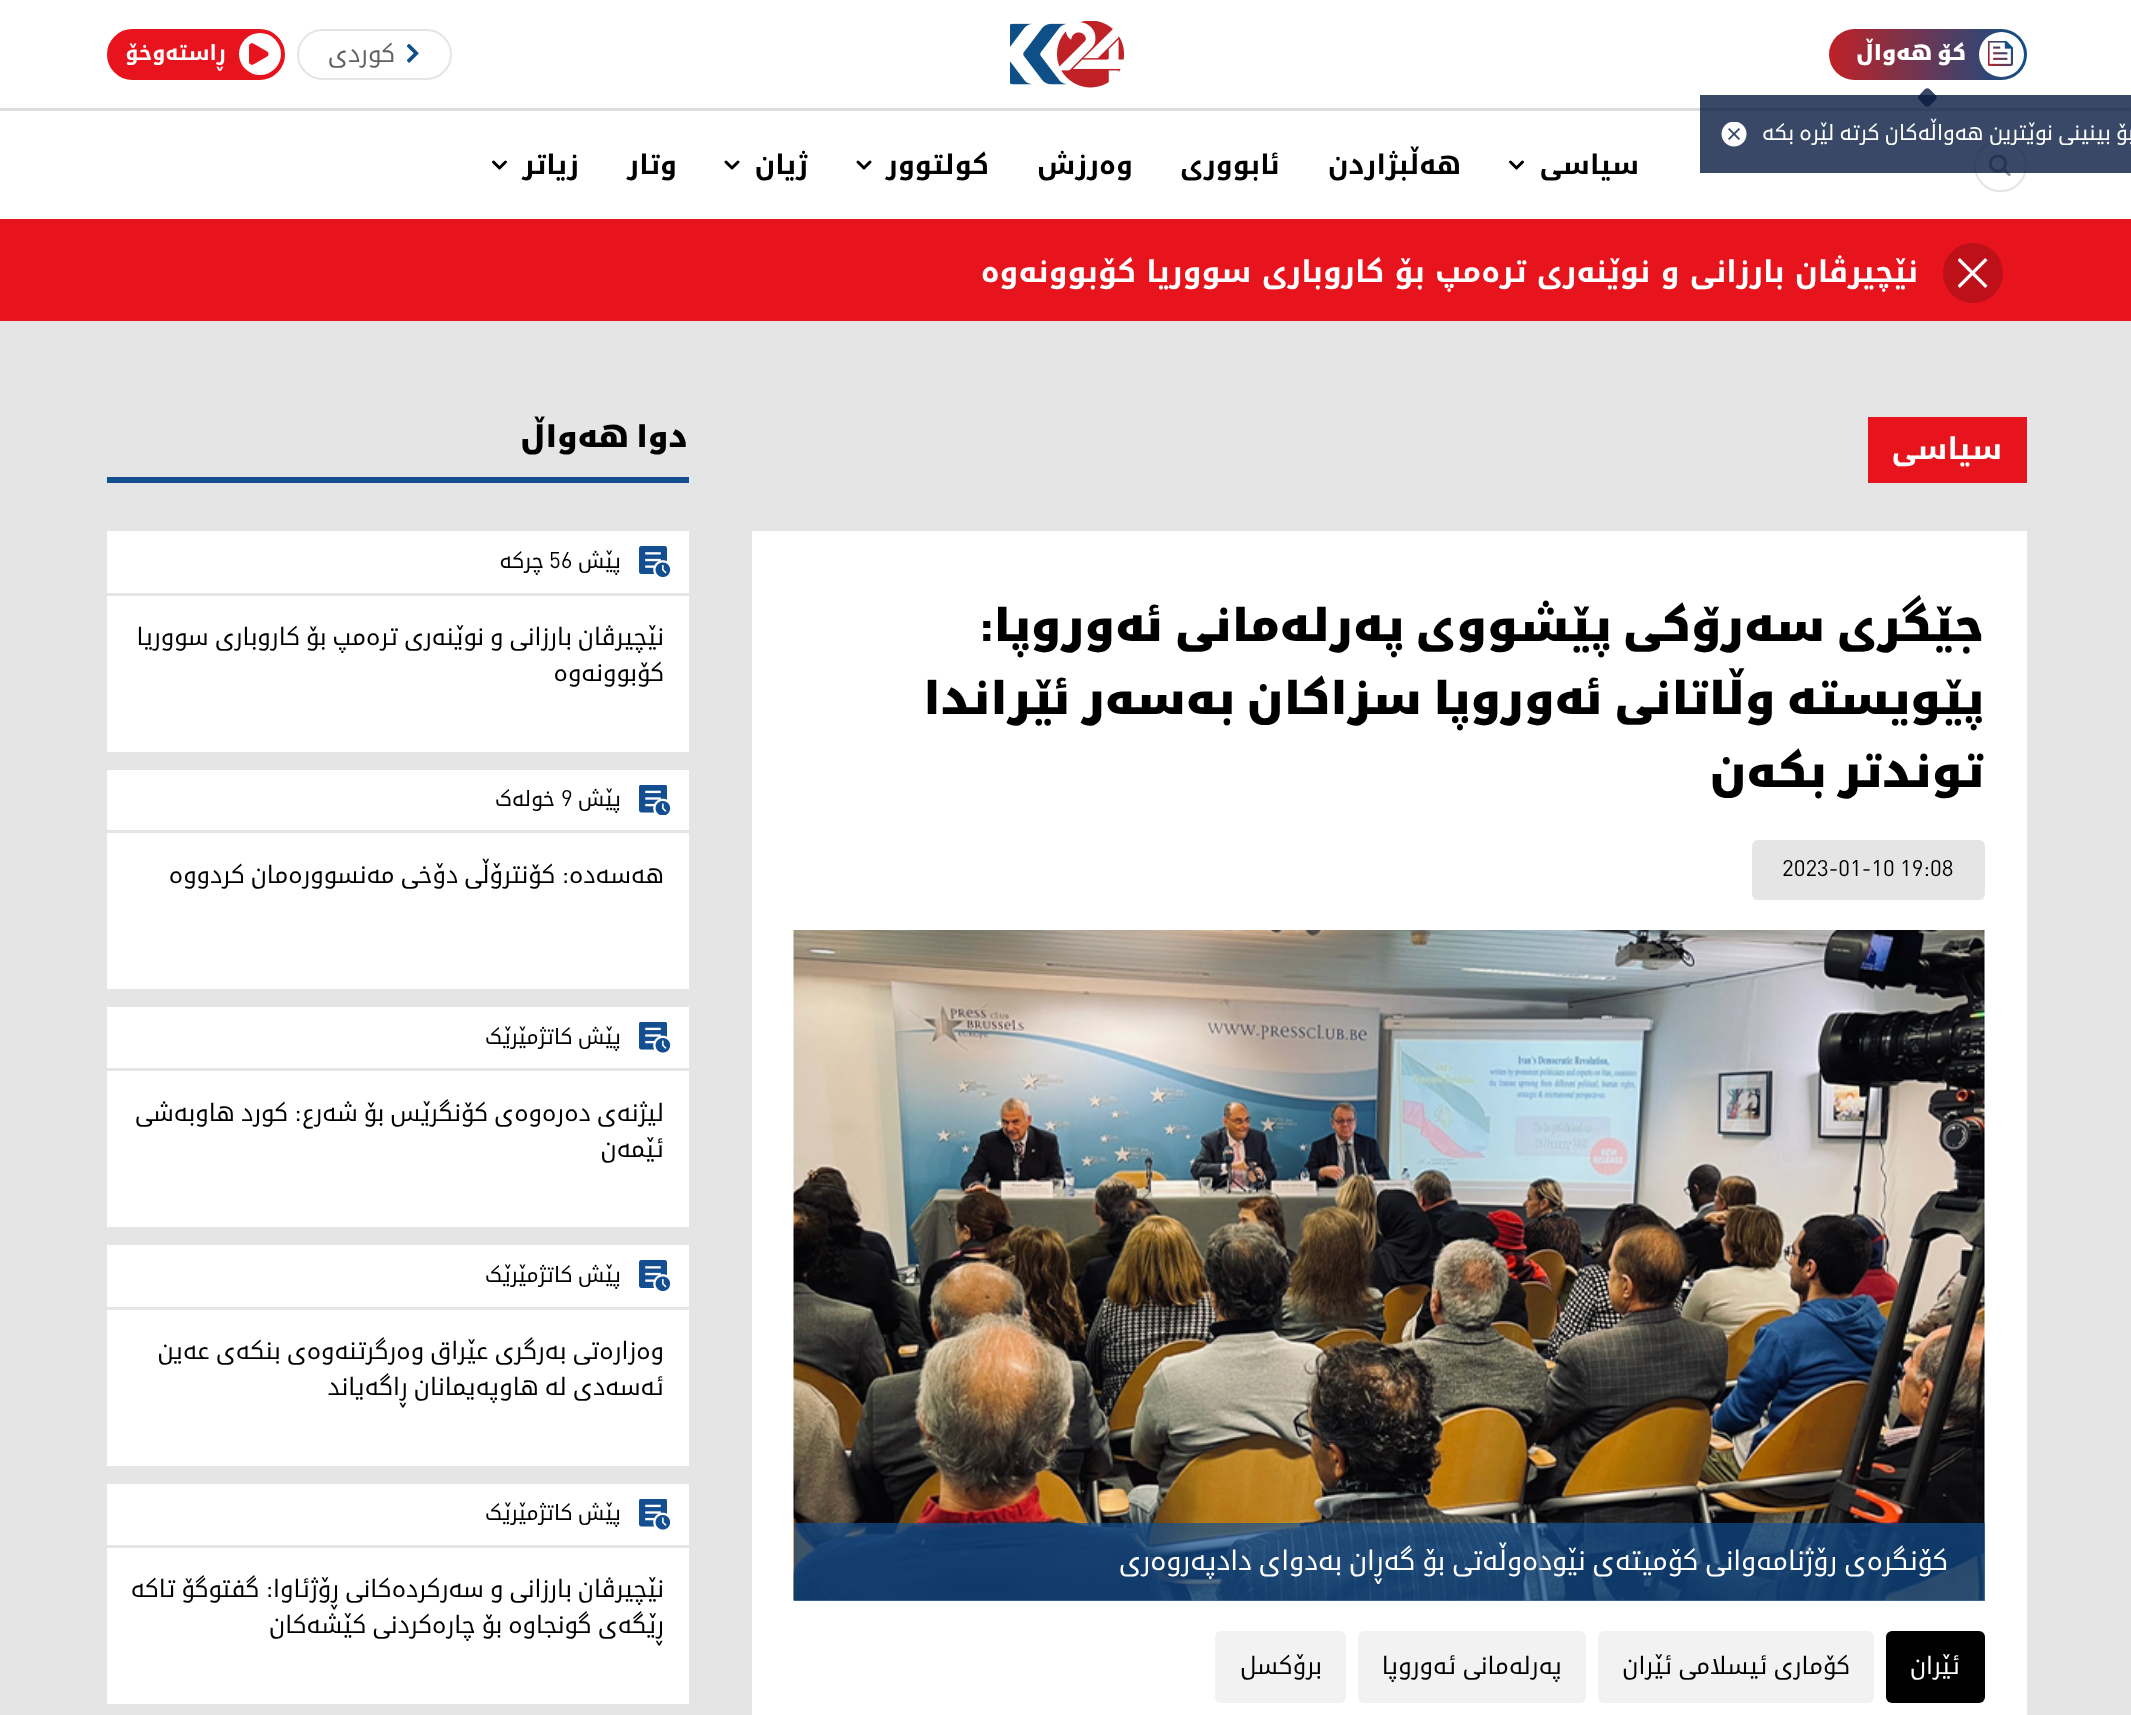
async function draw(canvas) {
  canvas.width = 2131;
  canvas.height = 1715;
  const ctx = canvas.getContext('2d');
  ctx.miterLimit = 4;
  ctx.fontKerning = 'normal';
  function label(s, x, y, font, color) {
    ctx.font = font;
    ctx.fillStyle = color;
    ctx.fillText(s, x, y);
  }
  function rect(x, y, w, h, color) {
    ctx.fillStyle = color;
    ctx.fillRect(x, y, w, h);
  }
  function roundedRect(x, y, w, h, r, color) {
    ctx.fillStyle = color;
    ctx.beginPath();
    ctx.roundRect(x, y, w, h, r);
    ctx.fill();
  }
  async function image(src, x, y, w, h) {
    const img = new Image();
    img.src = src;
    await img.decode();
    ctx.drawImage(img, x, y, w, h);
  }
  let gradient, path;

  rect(0, 0, 2131, 1715, '#e5e5e5');
  ctx.fillStyle = '#0000000d';
  ctx.filter = 'blur(1.5px)';
  ctx.beginPath();
  ctx.rect(0, 2, 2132, 108);
  ctx.fill();
  ctx.filter = 'none';
  rect(0, 0, 2131, 108, '#fff');
  gradient = ctx.createLinearGradient(1829, 54, 2027, 54);
  gradient.addColorStop(0, '#bf2126');
  gradient.addColorStop(1, '#0f4f87');
  ctx.fillStyle = gradient;
  ctx.beginPath();
  ctx.roundRect(1829, 29, 198, 51, 25.5);
  ctx.fill();
  ctx.fillStyle = '#fff';
  ctx.beginPath();
  ctx.arc(2001.5, 54.5, 22.5, 0, 2 * Math.PI);
  ctx.fill();
  await image('assets/img1.png', 1988, 41, 25, 25);
  ctx.direction = 'rtl';
  label('کۆ هەواڵ', 1966, 60, 'bold 21px "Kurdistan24"', '#fff');
  ctx.fillStyle = '#394867';
  path = new Path2D('M1929.5 89L1936 95.5C1937 96.5 1937 98.5 1936 99.5L1929.5 106C1928.5 107 1926.5 107 1925 106L1919 99.5C1917.5 98.5 1917.5 96.5 1919 95.5L1925 89C1926.5 88 1928.5 88 1929.5 89Z');
  ctx.fill(path);
  rect(0, 111, 2131, 108, '#fff');
  await image('assets/img6.png', 1989, 155, 22, 21);
  ctx.beginPath();
  ctx.roundRect(1975, 141, 51, 50, 25);
  ctx.strokeStyle = '#e5e5e5';
  ctx.lineWidth = 2;
  ctx.stroke();
  rect(1700, 95, 431, 78, '#071a41cc');
  label('بۆ بینینی نوێترین هەواڵەکان کرتە لێرە بکە', 2134, 140, '21px "Kurdistan24"', '#fff');
  await image('assets/img2.png', 1721, 122, 26, 25);
  await image('assets/img3.png', 1010, 21, 114, 67);
  ctx.beginPath();
  ctx.roundRect(298, 30, 153, 49, 24.5);
  ctx.stroke();
  await image('assets/img4.png', 407, 44, 12, 19);
  label('کوردی', 395, 62, '24px "Kurdistan24"', '#616161');
  ctx.fillStyle = '#e7131d';
  ctx.beginPath();
  ctx.roundRect(108, 30, 176, 49, 24.5);
  ctx.fill();
  ctx.strokeStyle = '#e7131d';
  ctx.stroke();
  ctx.fillStyle = '#fff';
  ctx.beginPath();
  ctx.arc(260, 54, 21, 0, 2 * Math.PI);
  ctx.fill();
  await image('assets/img5.png', 249, 43, 20, 22);
  label('ڕاستەوخۆ', 226, 60, '500 21px "Kurdistan24"', '#fff');
  label('سیاسی', 1639, 174, '500 27px "Kurdistan24"', '#000');
  path = new Path2D('M1510.5 162L1516.5 168L1522.5 162');
  ctx.strokeStyle = '#000';
  ctx.lineWidth = 3;
  ctx.lineCap = 'round';
  ctx.lineJoin = 'round';
  ctx.stroke(path);
  label('هەڵبژاردن', 1461, 174, '500 27px "Kurdistan24"', '#000');
  label('ئابووری', 1280, 174, '500 27px "Kurdistan24"', '#000');
  label('وەرزش', 1133, 174, '500 27px "Kurdistan24"', '#000');
  label('کولتوور', 989, 174, '500 27px "Kurdistan24"', '#000');
  path = new Path2D('M858 162L864 168L870 162');
  ctx.stroke(path);
  label('ژیان', 808, 174, '500 27px "Kurdistan24"', '#000');
  path = new Path2D('M726 162L732 168L738 162');
  ctx.stroke(path);
  label('وتار', 677, 174, '500 27px "Kurdistan24"', '#000');
  label('زیاتر', 579, 174, '500 27px "Kurdistan24"', '#000');
  path = new Path2D('M493.5 162L499.5 168L505.5 162');
  ctx.stroke(path);
  rect(0, 219, 2131, 102, '#e7131d');
  ctx.fillStyle = '#bd1018';
  ctx.beginPath();
  ctx.arc(1973, 273, 30, 0, 2 * Math.PI);
  ctx.fill();
  await image('assets/img7.png', 1958, 258, 30, 30);
  label('نێچيرڤان بارزانى و نوێنه‌رى تره‌مپ بۆ كاروبارى سووريا كۆبوونه‌وه‌', 1918, 282, '500 30px "Kurdistan24"', '#fff');
  rect(1868, 417, 159, 66, '#e7131d');
  label('سیاسی', 2002, 459, '500 30px "Kurdistan24"', '#fff');
  rect(752, 531, 1275, 1184, '#fff');
  label('جێگری سەرۆکی پێشووی پەرلەمانی ئەوروپا:', 1984, 641, 'bold 45px "Kurdistan24"', '#000');
  label('پێویستە وڵاتانی ئەوروپا سزاكان به‌سه‌ر ئێراندا', 1984, 714, 'bold 45px "Kurdistan24"', '#000');
  label('توندتر بكه‌ن', 1984, 787, 'bold 45px "Kurdistan24"', '#000');
  roundedRect(1752, 840, 233, 60, 6, '#e5e5e5');
  ctx.direction = 'ltr';
  label('2023-01-10 19:08', 1782, 876, '21px "Kurdistan24"', '#000');
  await image('assets/img8.png', 793, 930, 1192, 671);
  rect(794, 1523, 1191, 78, '#124e90b3');
  ctx.direction = 'rtl';
  label('كۆنگره‌ی رۆژنامه‌وانی کۆمیتەی نێودەوڵەتی بۆ گەڕان بەدوای دادپەروەری', 1948, 1570, '27px "Kurdistan24"', '#fff');
  roundedRect(1886, 1631, 99, 72, 6, '#000');
  label('ئێران', 1960, 1674, '24px "Kurdistan24"', '#fff');
  roundedRect(1598, 1631, 276, 72, 6, '#f2f2f2');
  label('كۆماری ئیسلامی ئێران', 1850, 1674, '24px "Kurdistan24"', '#000');
  roundedRect(1358, 1631, 228, 72, 6, '#f2f2f2');
  label('په‌رله‌مانی ئه‌وروپا', 1562, 1674, '24px "Kurdistan24"', '#000');
  roundedRect(1215, 1631, 131, 72, 6, '#f2f2f2');
  label('برۆكسل', 1322, 1674, '24px "Kurdistan24"', '#000');
  rect(107, 477, 582, 6, '#124e90');
  label('دوا هەواڵ', 688, 447, 'bold 30px "Kurdistan24"', '#000');
  rect(107, 531, 582, 221, '#fff');
  rect(107, 593, 582, 3, '#e5e5e5');
  await image('assets/img9.png', 639, 546, 32, 32);
  label('پێش', 621, 568, '21px "Kurdistan24"', '#000');
  ctx.direction = 'ltr';
  label('56', 549, 568, '21px "Kurdistan24"', '#000');
  ctx.direction = 'rtl';
  label('چرکە', 544, 568, '21px "Kurdistan24"', '#000');
  label('نێچيرڤان بارزانى و نوێنه‌رى تره‌مپ بۆ كاروبارى سووريا', 664, 645, '24px "Kurdistan24"', '#000');
  label('كۆبوونه‌وه‌', 664, 681, '24px "Kurdistan24"', '#000');
  rect(107, 770, 582, 219, '#fff');
  rect(107, 830, 582, 3, '#e5e5e5');
  await image('assets/img10.png', 639, 785, 32, 30);
  label('پێش', 621, 806, '21px "Kurdistan24"', '#000');
  ctx.direction = 'ltr';
  label('9', 561, 806, '21px "Kurdistan24"', '#000');
  ctx.direction = 'rtl';
  label('خولەک', 555, 806, '21px "Kurdistan24"', '#000');
  label('هەسەدە: کۆنترۆڵی دۆخی مەنسوورەمان کردووە', 664, 883, '24px "Kurdistan24"', '#000');
  rect(107, 1007, 582, 220, '#fff');
  rect(107, 1068, 582, 3, '#e5e5e5');
  await image('assets/img11.png', 639, 1022, 32, 31);
  label('پێش کاتژمێرێک', 621, 1044, '21px "Kurdistan24"', '#000');
  label('لیژنەی دەرەوەی کۆنگرێس بۆ شەرع: کورد هاوبەشی', 664, 1121, '24px "Kurdistan24"', '#000');
  label('ئێمەن', 664, 1157, '24px "Kurdistan24"', '#000');
  rect(107, 1245, 582, 221, '#fff');
  rect(107, 1307, 582, 3, '#e5e5e5');
  await image('assets/img9.png', 639, 1260, 32, 32);
  label('پێش کاتژمێرێک', 621, 1282, '21px "Kurdistan24"', '#000');
  label('وەزارەتی بەرگری عێراق وەرگرتنەوەی بنکەی عەین', 664, 1359, '24px "Kurdistan24"', '#000');
  label('ئەسەدی لە هاوپەیمانان ڕاگەیاند', 664, 1395, '24px "Kurdistan24"', '#000');
  rect(107, 1484, 582, 220, '#fff');
  rect(107, 1545, 582, 3, '#e5e5e5');
  await image('assets/img11.png', 639, 1499, 32, 31);
  label('پێش کاتژمێرێک', 621, 1520, '21px "Kurdistan24"', '#000');
  label('نێچیرڤان بارزانی و سەرکردەکانی ڕۆژئاوا: گفتوگۆ تاکە', 664, 1597, '24px "Kurdistan24"', '#000');
  label('ڕێگەی گونجاوە بۆ چارەکردنی کێشەکان', 664, 1633, '24px "Kurdistan24"', '#000');
}

draw(document.querySelector('canvas'));
